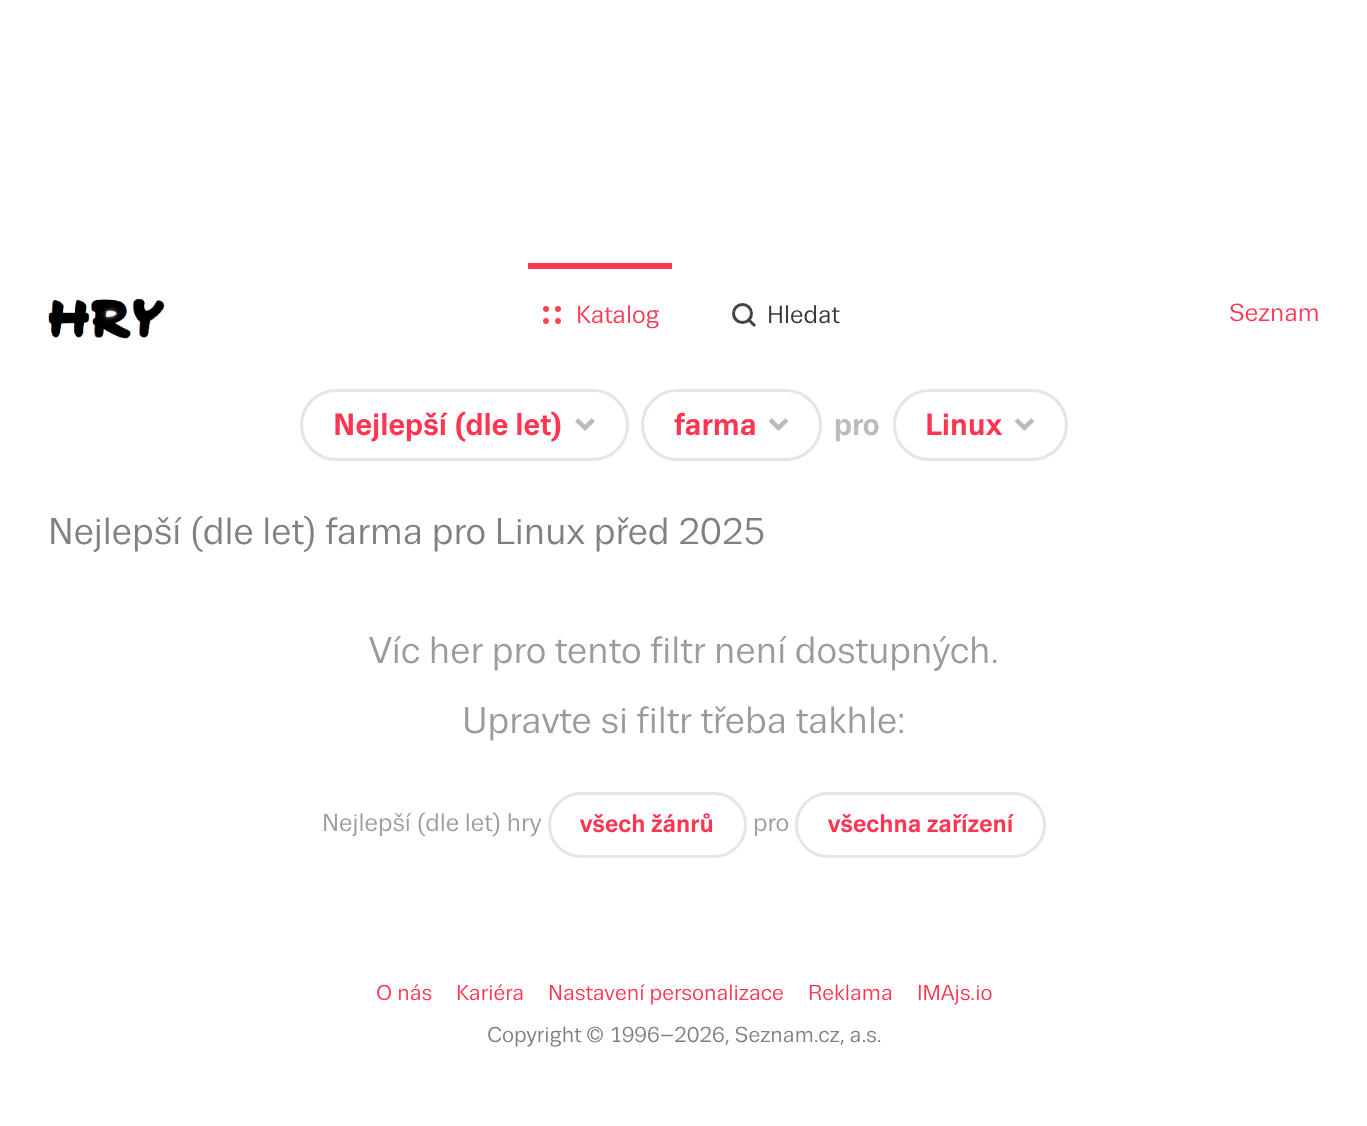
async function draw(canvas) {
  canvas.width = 1367;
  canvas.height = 1126;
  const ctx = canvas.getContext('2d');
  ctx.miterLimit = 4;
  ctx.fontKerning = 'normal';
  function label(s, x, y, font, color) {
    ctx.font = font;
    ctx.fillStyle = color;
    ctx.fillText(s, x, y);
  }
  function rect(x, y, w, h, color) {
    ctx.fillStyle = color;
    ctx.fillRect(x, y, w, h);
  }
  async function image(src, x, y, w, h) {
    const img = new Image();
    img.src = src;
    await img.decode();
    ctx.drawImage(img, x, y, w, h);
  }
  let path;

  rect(0, 0, 1367, 1126, '#fff');
  await image('assets/img1.png', 48, 298, 117, 41);
  rect(528, 263, 144, 6, '#fe3652');
  ctx.fillStyle = '#ff4553';
  ctx.beginPath();
  ctx.arc(546, 309, 3, 0, 2 * Math.PI);
  ctx.fill();
  ctx.beginPath();
  ctx.arc(558, 309, 3, 0, 2 * Math.PI);
  ctx.fill();
  label('Katalog', 576, 323, '24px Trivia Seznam', '#fe3652');
  ctx.fillStyle = '#ff4553';
  ctx.beginPath();
  ctx.arc(546, 321, 3, 0, 2 * Math.PI);
  ctx.fill();
  ctx.beginPath();
  ctx.arc(558, 321, 3, 0, 2 * Math.PI);
  ctx.fill();
  label('Hledat', 767, 323, '24px Trivia Seznam', '#333');
  ctx.beginPath();
  ctx.arc(742.5, 313.5, 9, 0, 2 * Math.PI);
  ctx.strokeStyle = '#444';
  ctx.lineWidth = 3;
  ctx.stroke();
  path = new Path2D('M749 320L754 325');
  ctx.lineCap = 'square';
  ctx.stroke(path);
  label('Seznam', 1229, 321, '24px Trivia Seznam', '#fe3652');
  ctx.beginPath();
  ctx.roundRect(301.5, 390.5, 326, 69, 34.5);
  ctx.strokeStyle = '#e5e5e5';
  ctx.stroke();
  label('Nejlepší (dle let)', 333, 435, 'bold 30px Trivia Seznam', '#fe3652');
  await image('assets/img2.png', 575, 418, 20, 13);
  ctx.beginPath();
  ctx.roundRect(642.5, 390.5, 178, 69, 34.5);
  ctx.stroke();
  label('farma', 674, 435, 'bold 30px Trivia Seznam', '#fe3652');
  await image('assets/img3.png', 768, 418, 21, 13);
  label('pro', 834, 435, 'bold 30px Trivia Seznam', '#bbb');
  ctx.beginPath();
  ctx.roundRect(894.5, 390.5, 172, 69, 34.5);
  ctx.stroke();
  label('Linux', 925, 435, 'bold 30px Trivia Seznam', '#fe3652');
  await image('assets/img3.png', 1014, 418, 21, 13);
  label('Nejlepší (dle let) farma pro Linux před 2025', 48, 544, '36px Trivia Seznam', '#808080');
  label('Víc her pro tento filtr není dostupných.', 369, 663, '36px Trivia Seznam', '#9b9b9b');
  label('Upravte si filtr třeba takhle:', 462, 733, '36px Trivia Seznam', '#9b9b9b');
  label('Nejlepší (dle let) hry', 322, 831, '24px Trivia Seznam', '#9b9b9b');
  ctx.beginPath();
  ctx.roundRect(549.5, 793.5, 196, 63, 31.5);
  ctx.stroke();
  label('všech žánrů', 580, 832, 'bold 24px Trivia Seznam', '#fe3652');
  label('pro', 753, 831, '24px Trivia Seznam', '#9b9b9b');
  ctx.beginPath();
  ctx.roundRect(796.5, 793.5, 248, 63, 31.5);
  ctx.stroke();
  label('všechna zařízení', 828, 832, 'bold 24px Trivia Seznam', '#fe3652');
  label('O nás', 376, 1000, '21px Trivia Seznam', '#fe3652');
  label('Kariéra', 456, 1000, '21px Trivia Seznam', '#fe3652');
  label('Nastavení personalizace', 548, 1000, '21px Trivia Seznam', '#fe3652');
  label('Reklama', 808, 1000, '21px Trivia Seznam', '#fe3652');
  label('IMAjs.io', 917, 1000, '21px Trivia Seznam', '#fe3652');
  label('Copyright © 1996–2026, Seznam.cz, a.s.', 487, 1042, '21px Trivia Seznam', '#808080');
}

draw(document.querySelector('canvas'));
